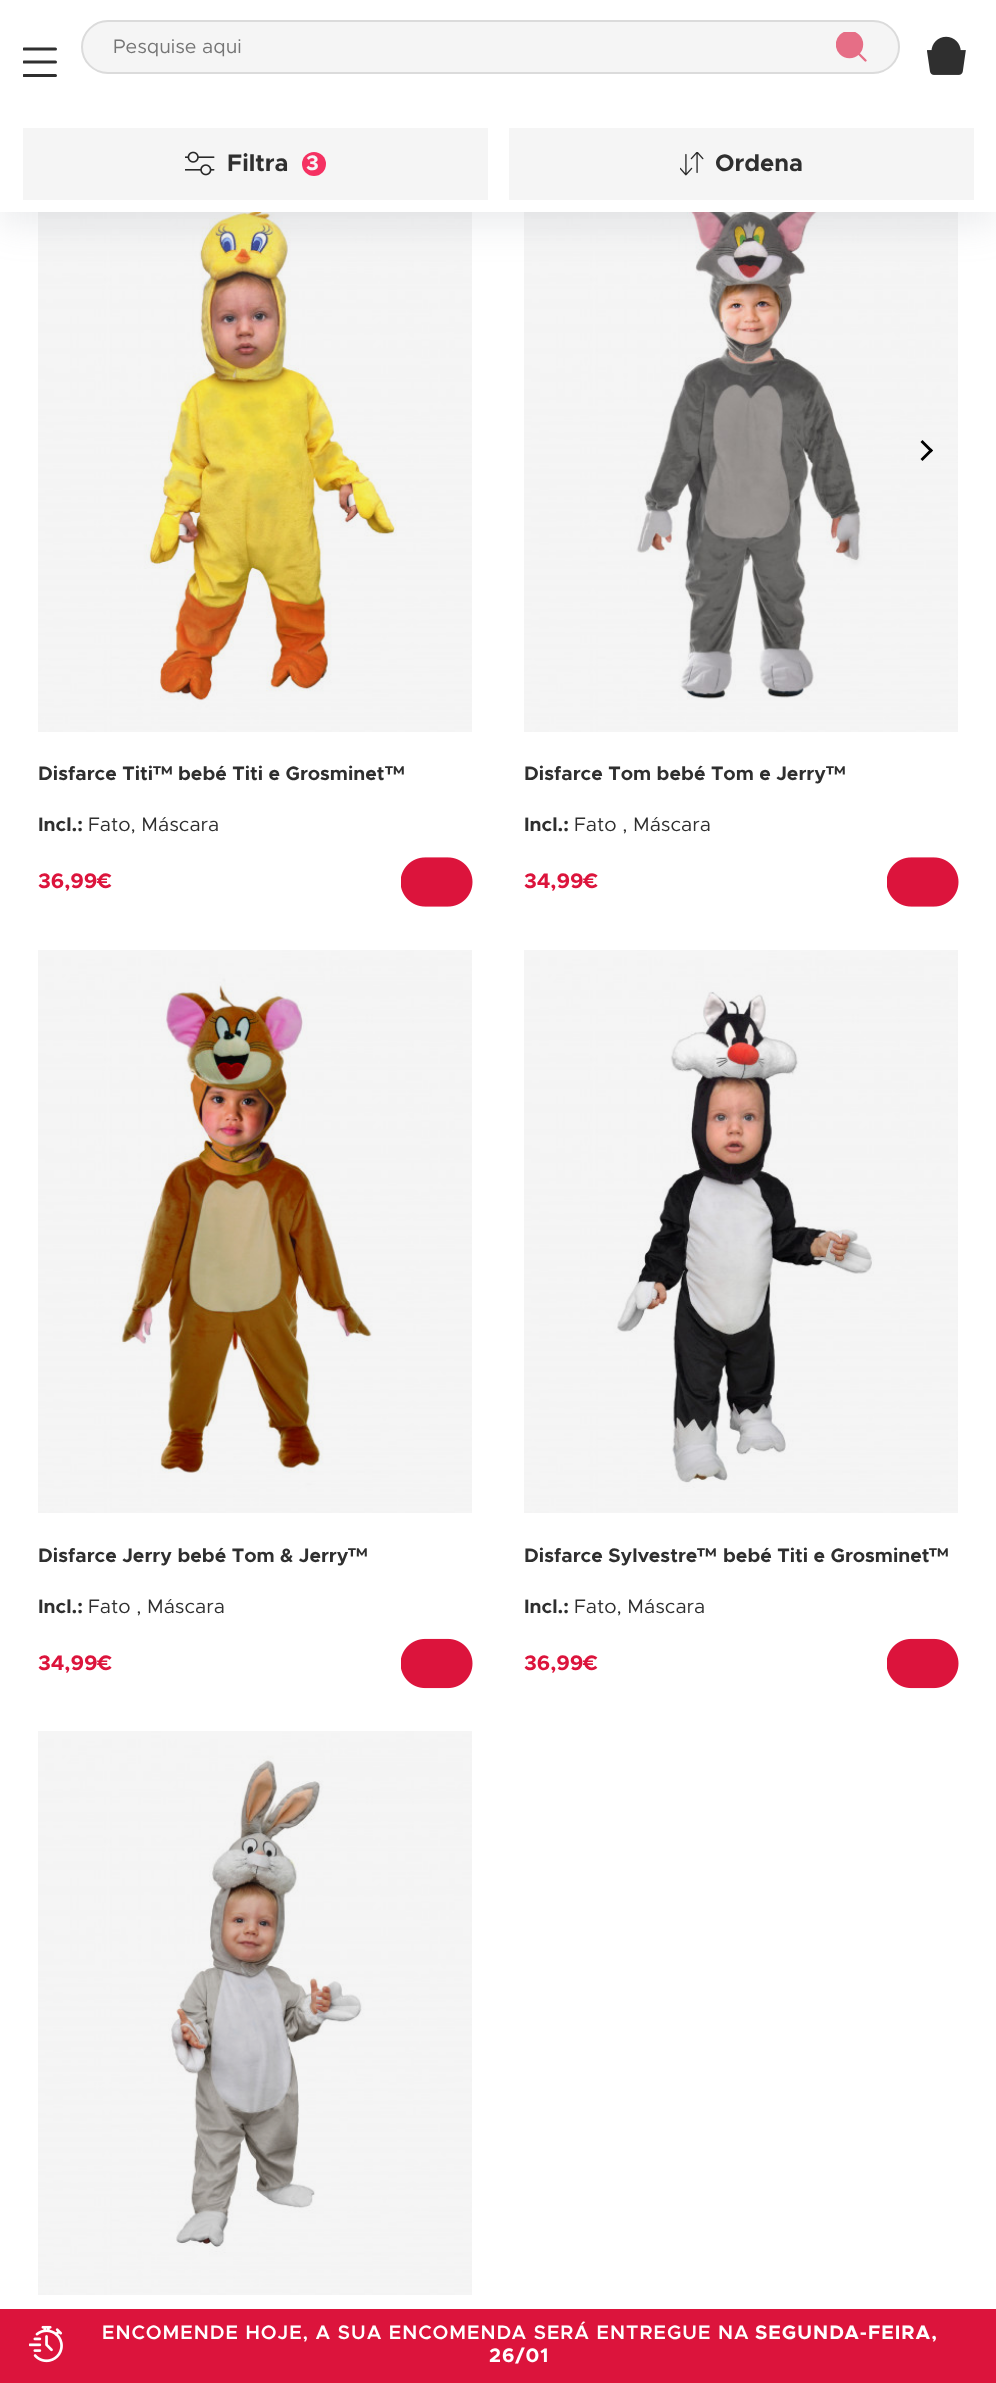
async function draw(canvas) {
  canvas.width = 996;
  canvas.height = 2383;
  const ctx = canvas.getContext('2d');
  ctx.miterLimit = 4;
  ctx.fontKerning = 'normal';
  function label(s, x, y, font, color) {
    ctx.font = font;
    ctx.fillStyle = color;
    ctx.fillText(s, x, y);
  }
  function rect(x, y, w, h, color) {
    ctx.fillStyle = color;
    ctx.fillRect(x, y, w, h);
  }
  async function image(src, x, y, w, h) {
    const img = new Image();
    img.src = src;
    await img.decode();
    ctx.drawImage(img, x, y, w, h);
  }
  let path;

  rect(0, 0, 996, 2383, '#fff');
  await image('assets/img4.png', 38, 212, 434, 520);
  await image('assets/img6.png', 524, 212, 434, 520);
  ctx.fillStyle = '#959da533';
  ctx.filter = 'blur(18px)';
  ctx.beginPath();
  ctx.rect(0, 12, 996, 212);
  ctx.fill();
  ctx.filter = 'none';
  rect(0, 0, 996, 212, '#fff');
  ctx.save();
  ctx.beginPath();
  ctx.rect(23, 45, 34, 35);
  ctx.clip();
  path = new Path2D('M24 49H55.5M24 62H55.5M24 75.5H55.5');
  ctx.strokeStyle = '#2f2f2f';
  ctx.lineWidth = 3;
  ctx.lineCap = 'round';
  ctx.lineJoin = 'round';
  ctx.stroke(path);
  ctx.restore();
  ctx.fillStyle = '#f5f5f5';
  ctx.beginPath();
  ctx.roundRect(82, 21, 817, 52, 26);
  ctx.fill();
  ctx.strokeStyle = '#dbdbdb';
  ctx.lineWidth = 2;
  ctx.stroke();
  label('Pesquise aqui', 113, 53, '19.5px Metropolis', '#757575');
  ctx.fillStyle = '#e66e86';
  ctx.beginPath();
  ctx.arc(849.5, 44.5, 12.5, 0, 2 * Math.PI);
  ctx.fill();
  ctx.save();
  ctx.beginPath();
  ctx.rect(836, 32, 34, 33);
  ctx.clip();
  ctx.beginPath();
  ctx.arc(849.5, 44.5, 12.5, 0, 2 * Math.PI);
  ctx.strokeStyle = '#e66e86';
  ctx.lineWidth = 2.4;
  ctx.stroke();
  ctx.restore();
  path = new Path2D('M865.5 60.5L858.5 53.5');
  ctx.strokeStyle = '#e66e86';
  ctx.lineWidth = 2.4;
  ctx.lineCap = 'round';
  ctx.lineJoin = 'round';
  ctx.stroke(path);
  await image('assets/img1.png', 927, 36, 39, 39);
  rect(23, 128, 465, 72, '#f5f5f5');
  await image('assets/img2.png', 185, 151, 30, 25);
  label('Filtra', 227, 171, 'bold 24px Metropolis', '#2f2f2f');
  ctx.fillStyle = '#f53162';
  ctx.beginPath();
  ctx.arc(314, 164, 12, 0, 2 * Math.PI);
  ctx.fill();
  label('3', 306, 170, 'bold 21px Metropolis', '#f5f5f5');
  rect(509, 128, 465, 72, '#f5f5f5');
  await image('assets/img3.png', 680, 152, 24, 24);
  label('Ordena', 715, 171, 'bold 24px Metropolis', '#2f2f2f');
  label('Disfarce Titi', 38, 780, 'bold 19.5px Metropolis', '#2f2f2f');
  label('™', 153, 780, 'bold 19.5px Montserrat', '#2f2f2f');
  label('bebé Titi e Grosminet', 178, 780, 'bold 19.5px Metropolis', '#2f2f2f');
  label('™', 385, 780, 'bold 19.5px Montserrat', '#2f2f2f');
  label('Incl.:', 38, 831, 'bold 19.5px Metropolis', '#2f2f2f');
  label('Fato, Máscara', 88, 831, '19.5px Metropolis', '#2f2f2f');
  label('36,99€', 38, 888, 'bold 21px Metropolis', '#dc143c');
  await image('assets/img5.png', 401, 857, 72, 50);
  ctx.fillStyle = '#000';
  path = new Path2D('M922.5 440L933 450.5L931 452.5L920.5 442Z');
  ctx.fill(path);
  path = new Path2D('M931 448.5L933 450.5L922.5 461L920.5 459Z');
  ctx.fill(path);
  label('Disfarce Tom bebé Tom e Jerry', 524, 780, 'bold 19.5px Metropolis', '#2f2f2f');
  label('™', 826, 780, 'bold 19.5px Montserrat', '#2f2f2f');
  label('Incl.:', 524, 831, 'bold 19.5px Metropolis', '#2f2f2f');
  label('Fato , Máscara', 574, 831, '19.5px Metropolis', '#2f2f2f');
  label('34,99€', 524, 888, 'bold 21px Metropolis', '#dc143c');
  await image('assets/img5.png', 887, 857, 72, 50);
  await image('assets/img7.png', 38, 950, 434, 563);
  label('Disfarce Jerry bebé Tom & Jerry', 38, 1562, 'bold 19.5px Metropolis', '#2f2f2f');
  label('™', 348, 1562, 'bold 19.5px Montserrat', '#2f2f2f');
  label('Incl.:', 38, 1613, 'bold 19.5px Metropolis', '#2f2f2f');
  label('Fato , Máscara', 88, 1613, '19.5px Metropolis', '#2f2f2f');
  label('34,99€', 38, 1670, 'bold 21px Metropolis', '#dc143c');
  await image('assets/img8.png', 401, 1638, 72, 51);
  await image('assets/img9.png', 524, 950, 434, 563);
  label('Disfarce Sylvestre', 524, 1562, 'bold 19.5px Metropolis', '#2f2f2f');
  label('™', 697, 1562, 'bold 19.5px Montserrat', '#2f2f2f');
  label('bebé Titi e Grosminet', 723, 1562, 'bold 19.5px Metropolis', '#2f2f2f');
  label('™', 929, 1562, 'bold 19.5px Montserrat', '#2f2f2f');
  label('Incl.:', 524, 1613, 'bold 19.5px Metropolis', '#2f2f2f');
  label('Fato, Máscara', 574, 1613, '19.5px Metropolis', '#2f2f2f');
  label('36,99€', 524, 1670, 'bold 21px Metropolis', '#dc143c');
  await image('assets/img8.png', 887, 1638, 72, 51);
  await image('assets/img10.png', 38, 1731, 434, 564);
  rect(0, 2309, 996, 74, '#dc143c');
  await image('assets/img11.png', 29, 2325, 34, 38);
  ctx.letterSpacing = '1px';
  label('ENCOMENDE HOJE, A SUA ENCOMENDA SERÁ ENTREGUE NA', 102, 2339, '600 19.5px Metropolis', '#fff');
  label('SEGUNDA-FEIRA,', 755, 2339, 'bold 19.5px Metropolis', '#fff');
  label('26/01', 489, 2362, 'bold 19.5px Metropolis', '#fff');
}

draw(document.querySelector('canvas'));
